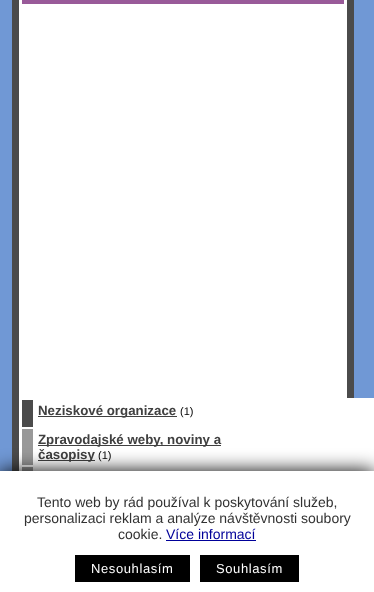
async function draw(canvas) {
  canvas.width = 374;
  canvas.height = 592;
  const ctx = canvas.getContext('2d');
  ctx.miterLimit = 4;
  ctx.fontKerning = 'normal';
  function label(s, x, y, font, color) {
    ctx.font = font;
    ctx.fillStyle = color;
    ctx.fillText(s, x, y);
  }
  function rect(x, y, w, h, color) {
    ctx.fillStyle = color;
    ctx.fillRect(x, y, w, h);
  }

  rect(0, 0, 374, 592, '#7098d5');
  rect(19, 0, 328, 398, '#fff');
  rect(347, 0, 7, 398, '#4b4b4b');
  rect(12, 0, 7, 471, '#4b4b4b');
  rect(22, 0, 322, 4, '#995a99');
  rect(19, 398, 355, 73, '#fff');
  rect(22, 400, 11, 27, '#4b4b4b');
  rect(38, 416, 139, 1, '#404040');
  label('Neziskové organizace', 38, 415, 'bold 13.3px Liberation Sans', '#404040');
  label('(1)', 180, 415, '11px Liberation Sans', '#000');
  rect(22, 429, 11, 36, '#999');
  rect(38, 445, 183, 1, '#404040');
  label('Zpravodajské weby, noviny a', 38, 444, 'bold 13.3px Liberation Sans', '#404040');
  rect(38, 460, 57, 1, '#404040');
  label('časopisy', 38, 459, 'bold 13.3px Liberation Sans', '#404040');
  label('(1)', 98, 459, '11px Liberation Sans', '#000');
  rect(22, 467, 11, 4, '#999');
  ctx.fillStyle = '#000';
  ctx.filter = 'blur(9.5px)';
  ctx.beginPath();
  ctx.rect(0, 471, 374, 121);
  ctx.fill();
  ctx.filter = 'none';
  rect(0, 471, 374, 121, '#fff');
  label('Tento web by rád používal k poskytování služeb,', 37, 507, '14px Liberation Sans', '#323232');
  label('personalizaci reklam a analýze návštěvnosti soubory', 24, 523, '14px Liberation Sans', '#323232');
  label('cookie.', 118, 539, '14px Liberation Sans', '#323232');
  label('Více informací', 166, 539, '14px Liberation Sans', '#009');
  rect(166, 540, 90, 1, '#009');
  rect(75, 555, 115, 27, '#000');
  ctx.letterSpacing = '0.6px';
  label('Nesouhlasím', 91, 573, '13px Liberation Sans', '#fff');
  rect(200, 555, 99, 27, '#000');
  label('Souhlasím', 216, 573, '13px Liberation Sans', '#fff');
}

draw(document.querySelector('canvas'));
